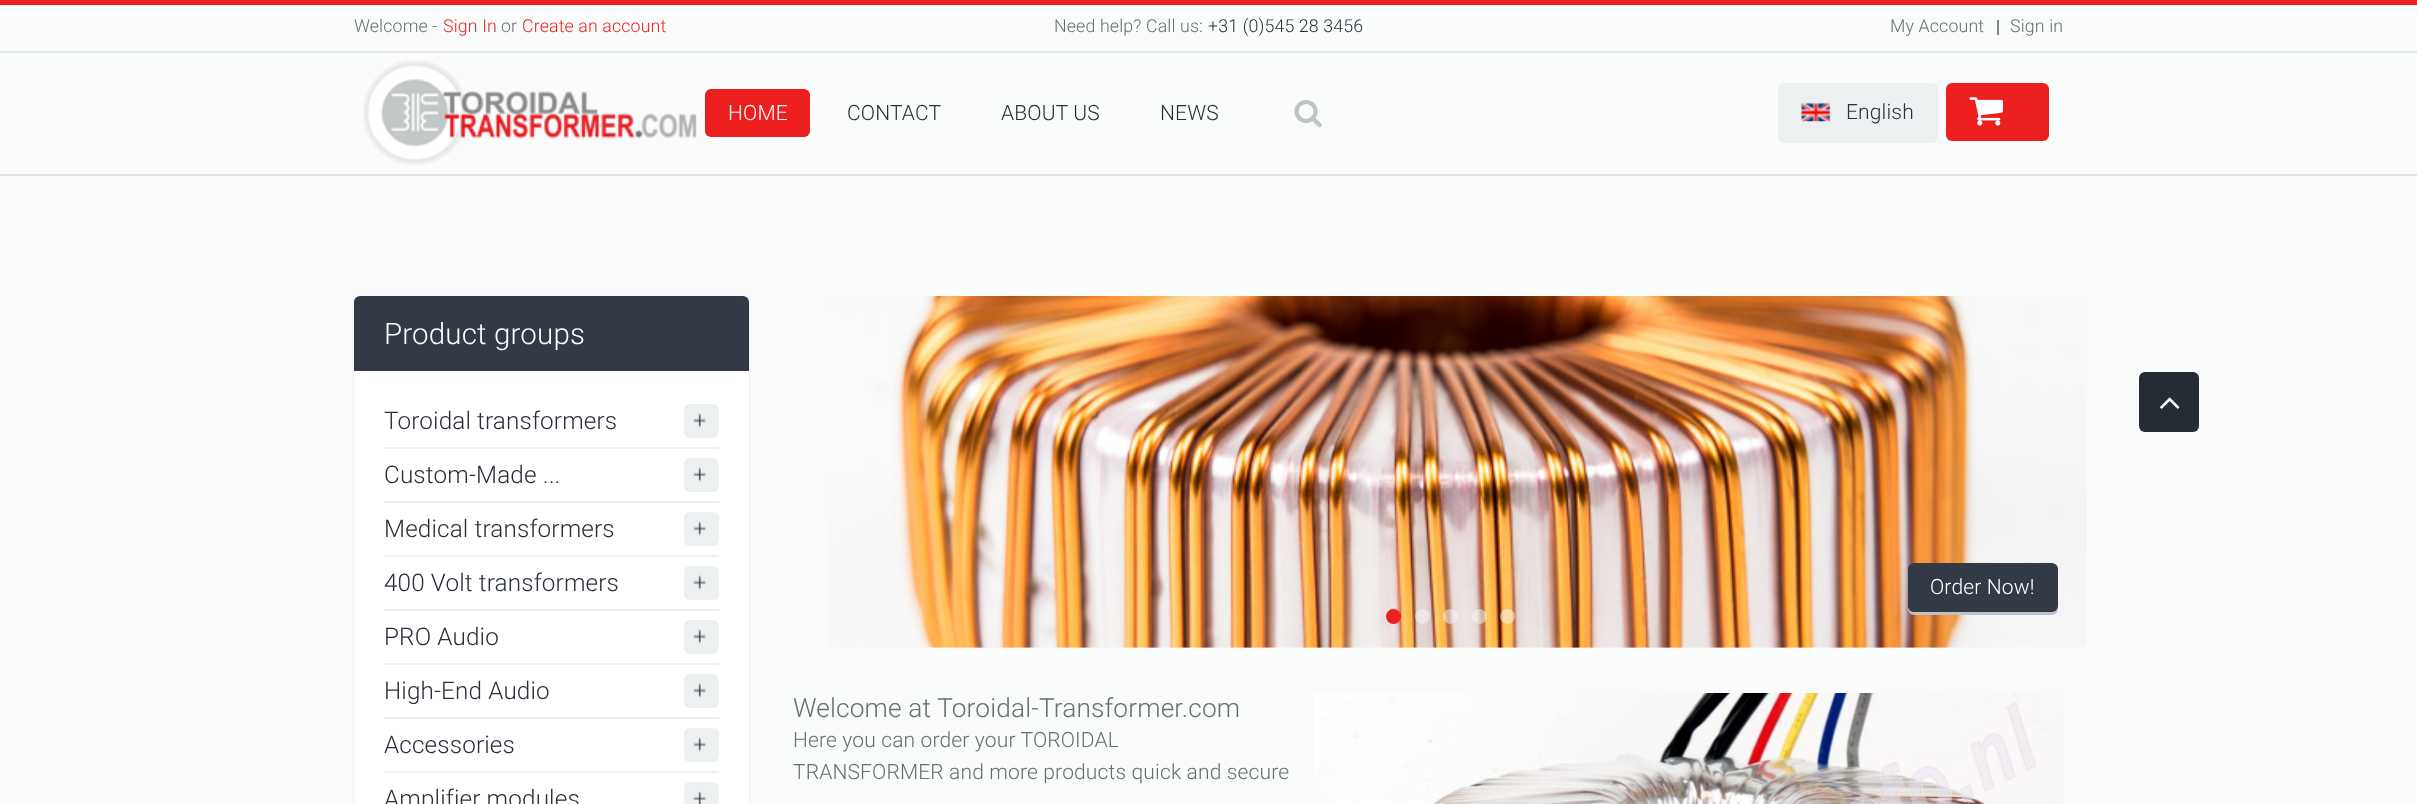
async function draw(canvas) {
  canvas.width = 2417;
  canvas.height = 804;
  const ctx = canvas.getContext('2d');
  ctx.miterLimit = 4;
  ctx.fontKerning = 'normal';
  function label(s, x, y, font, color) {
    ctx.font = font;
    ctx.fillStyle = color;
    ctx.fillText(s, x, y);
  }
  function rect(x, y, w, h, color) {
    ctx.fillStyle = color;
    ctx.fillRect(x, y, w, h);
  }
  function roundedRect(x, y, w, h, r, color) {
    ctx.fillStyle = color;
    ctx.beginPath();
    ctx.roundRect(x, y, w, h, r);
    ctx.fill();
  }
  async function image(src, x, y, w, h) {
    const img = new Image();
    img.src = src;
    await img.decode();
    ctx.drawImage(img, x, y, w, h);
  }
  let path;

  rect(0, 0, 2417, 804, '#fafbfb');
  rect(0, 0, 2417, 5, '#ec1e1e');
  rect(0, 51, 2417, 2, '#e2e6e7');
  ctx.letterSpacing = '0.15px';
  label('Welcome -', 354, 32, '300 17.75px Roboto', '#696e6e');
  label('Sign In', 443, 32, '300 17.75px Roboto', '#ec1e1e');
  label('or', 501, 32, '300 17.75px Roboto', '#696e6e');
  label('Create an account', 522, 32, '300 17.75px Roboto', '#ec1e1e');
  label('Need help? Call us:', 1054, 32, '300 17.75px Roboto', '#696e6e');
  label('+31 (0)545 28 3456', 1208, 32, '300 17.75px Roboto', '#292f38');
  label('My Account', 1890, 32, '300 17.75px Roboto', '#696e6e');
  rect(1997, 20, 2, 15, '#828686');
  label('Sign in', 2010, 32, '300 17.75px Roboto', '#696e6e');
  await image('assets/img1.png', 363, 60, 334, 106);
  roundedRect(705, 89, 105, 48, 6, '#ec1e1e');
  label('HOME', 728, 120, '300 21px Roboto', '#fff');
  label('CONTACT', 847, 120, '300 21px Roboto', '#292f38');
  label('ABOUT US', 1001, 120, '300 21px Roboto', '#292f38');
  label('NEWS', 1160, 120, '300 21px Roboto', '#292f38');
  await image('assets/img2.png', 1294, 100, 28, 28);
  roundedRect(1778, 83, 160, 60, 6, '#ecf0f1');
  await image('assets/img3.png', 1801, 102, 30, 20);
  label('English', 1846, 119, '300 21px Roboto', '#292f38');
  roundedRect(1946, 83, 103, 58, 6, '#ec1e1e');
  await image('assets/img4.png', 1969, 97, 34, 29);
  rect(0, 174, 2417, 2, '#e2e2e2');
  ctx.fillStyle = '#0000001a';
  ctx.filter = 'blur(1px)';
  ctx.beginPath();
  ctx.roundRect(354, 297, 395, 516, 6);
  ctx.fill();
  ctx.filter = 'none';
  ctx.fillStyle = '#323a45';
  ctx.beginPath();
  ctx.roundRect(354, 296, 395, 75, [6, 6, 0, 0]);
  ctx.fill();
  label('Product groups', 384, 344, '300 29.5px Roboto', '#fff');
  rect(354, 371, 395, 433, '#fff');
  rect(384, 447, 335, 2, '#ecf0f1');
  label('Toroidal transformers', 384, 429, '300 24.25px Roboto', '#292f38');
  roundedRect(684, 404, 35, 34, 6, '#ecf0f1');
  await image('assets/img5.png', 693, 413, 14, 15);
  rect(384, 501, 335, 2, '#ecf0f1');
  label('Custom-Made ...', 384, 483, '300 24.25px Roboto', '#292f38');
  roundedRect(684, 458, 35, 34, 6, '#ecf0f1');
  await image('assets/img6.png', 693, 467, 14, 15);
  rect(384, 555, 335, 2, '#ecf0f1');
  label('Medical transformers', 384, 537, '300 24.25px Roboto', '#292f38');
  roundedRect(684, 512, 35, 34, 6, '#ecf0f1');
  await image('assets/img5.png', 693, 521, 14, 15);
  rect(384, 609, 335, 2, '#ecf0f1');
  label('400 Volt transformers', 384, 591, '300 24.25px Roboto', '#292f38');
  roundedRect(684, 566, 35, 34, 6, '#ecf0f1');
  await image('assets/img5.png', 693, 575, 14, 15);
  rect(384, 663, 335, 2, '#ecf0f1');
  label('PRO Audio', 384, 645, '300 24.25px Roboto', '#292f38');
  roundedRect(684, 620, 35, 34, 6, '#ecf0f1');
  await image('assets/img5.png', 693, 629, 14, 15);
  rect(384, 717, 335, 2, '#ecf0f1');
  label('High-End Audio', 384, 699, '300 24.25px Roboto', '#292f38');
  roundedRect(684, 674, 35, 34, 6, '#ecf0f1');
  await image('assets/img5.png', 693, 683, 14, 15);
  rect(384, 771, 335, 2, '#ecf0f1');
  label('Accessories', 384, 753, '300 24.25px Roboto', '#292f38');
  roundedRect(684, 728, 35, 34, 6, '#ecf0f1');
  await image('assets/img5.png', 693, 737, 14, 15);
  label('Amplifier modules', 384, 807, '300 24.25px Roboto', '#292f38');
  roundedRect(684, 782, 35, 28, 6, '#ecf0f1');
  await image('assets/img7.png', 693, 791, 14, 13);
  await image('assets/img8.png', 828, 296, 1259, 352);
  ctx.fillStyle = '#bdc3c7';
  path = new Path2D('M1908 606V609C1908 612 1911 615 1914 615H2052C2055 615 2058 612 2058 609V606C2058 609 2055 612 2052 612H1914C1911 612 1908 609 1908 606Z');
  ctx.fill(path);
  roundedRect(1908, 563, 150, 49, 6, '#323a45');
  label('Order Now!', 1930, 594, '300 21px Roboto', '#fff');
  ctx.fillStyle = '#ec1e1e';
  ctx.beginPath();
  ctx.arc(1393.5, 616.5, 7.5, 0, 2 * Math.PI);
  ctx.fill();
  ctx.fillStyle = '#fafbfb80';
  ctx.beginPath();
  ctx.arc(1422.5, 616.5, 7.5, 0, 2 * Math.PI);
  ctx.fill();
  ctx.beginPath();
  ctx.arc(1450.5, 616.5, 7.5, 0, 2 * Math.PI);
  ctx.fill();
  ctx.beginPath();
  ctx.arc(1479.5, 616.5, 7.5, 0, 2 * Math.PI);
  ctx.fill();
  ctx.beginPath();
  ctx.arc(1507.5, 616.5, 7.5, 0, 2 * Math.PI);
  ctx.fill();
  label('Welcome at Toroidal-Transformer.com', 793, 717, '300 26.25px Roboto', '#696e6e');
  await image('assets/img9.png', 1314, 693, 750, 111);
  label('Here you can order your TOROIDAL', 793, 747, '300 21px Roboto', '#696e6e');
  label('TRANSFORMER and more products quick and secure', 793, 779, '300 21px Roboto', '#696e6e');
  roundedRect(2139, 372, 60, 60, 6, '#262c34');
  await image('assets/img10.png', 2160, 397, 20, 12);
}

draw(document.querySelector('canvas'));
